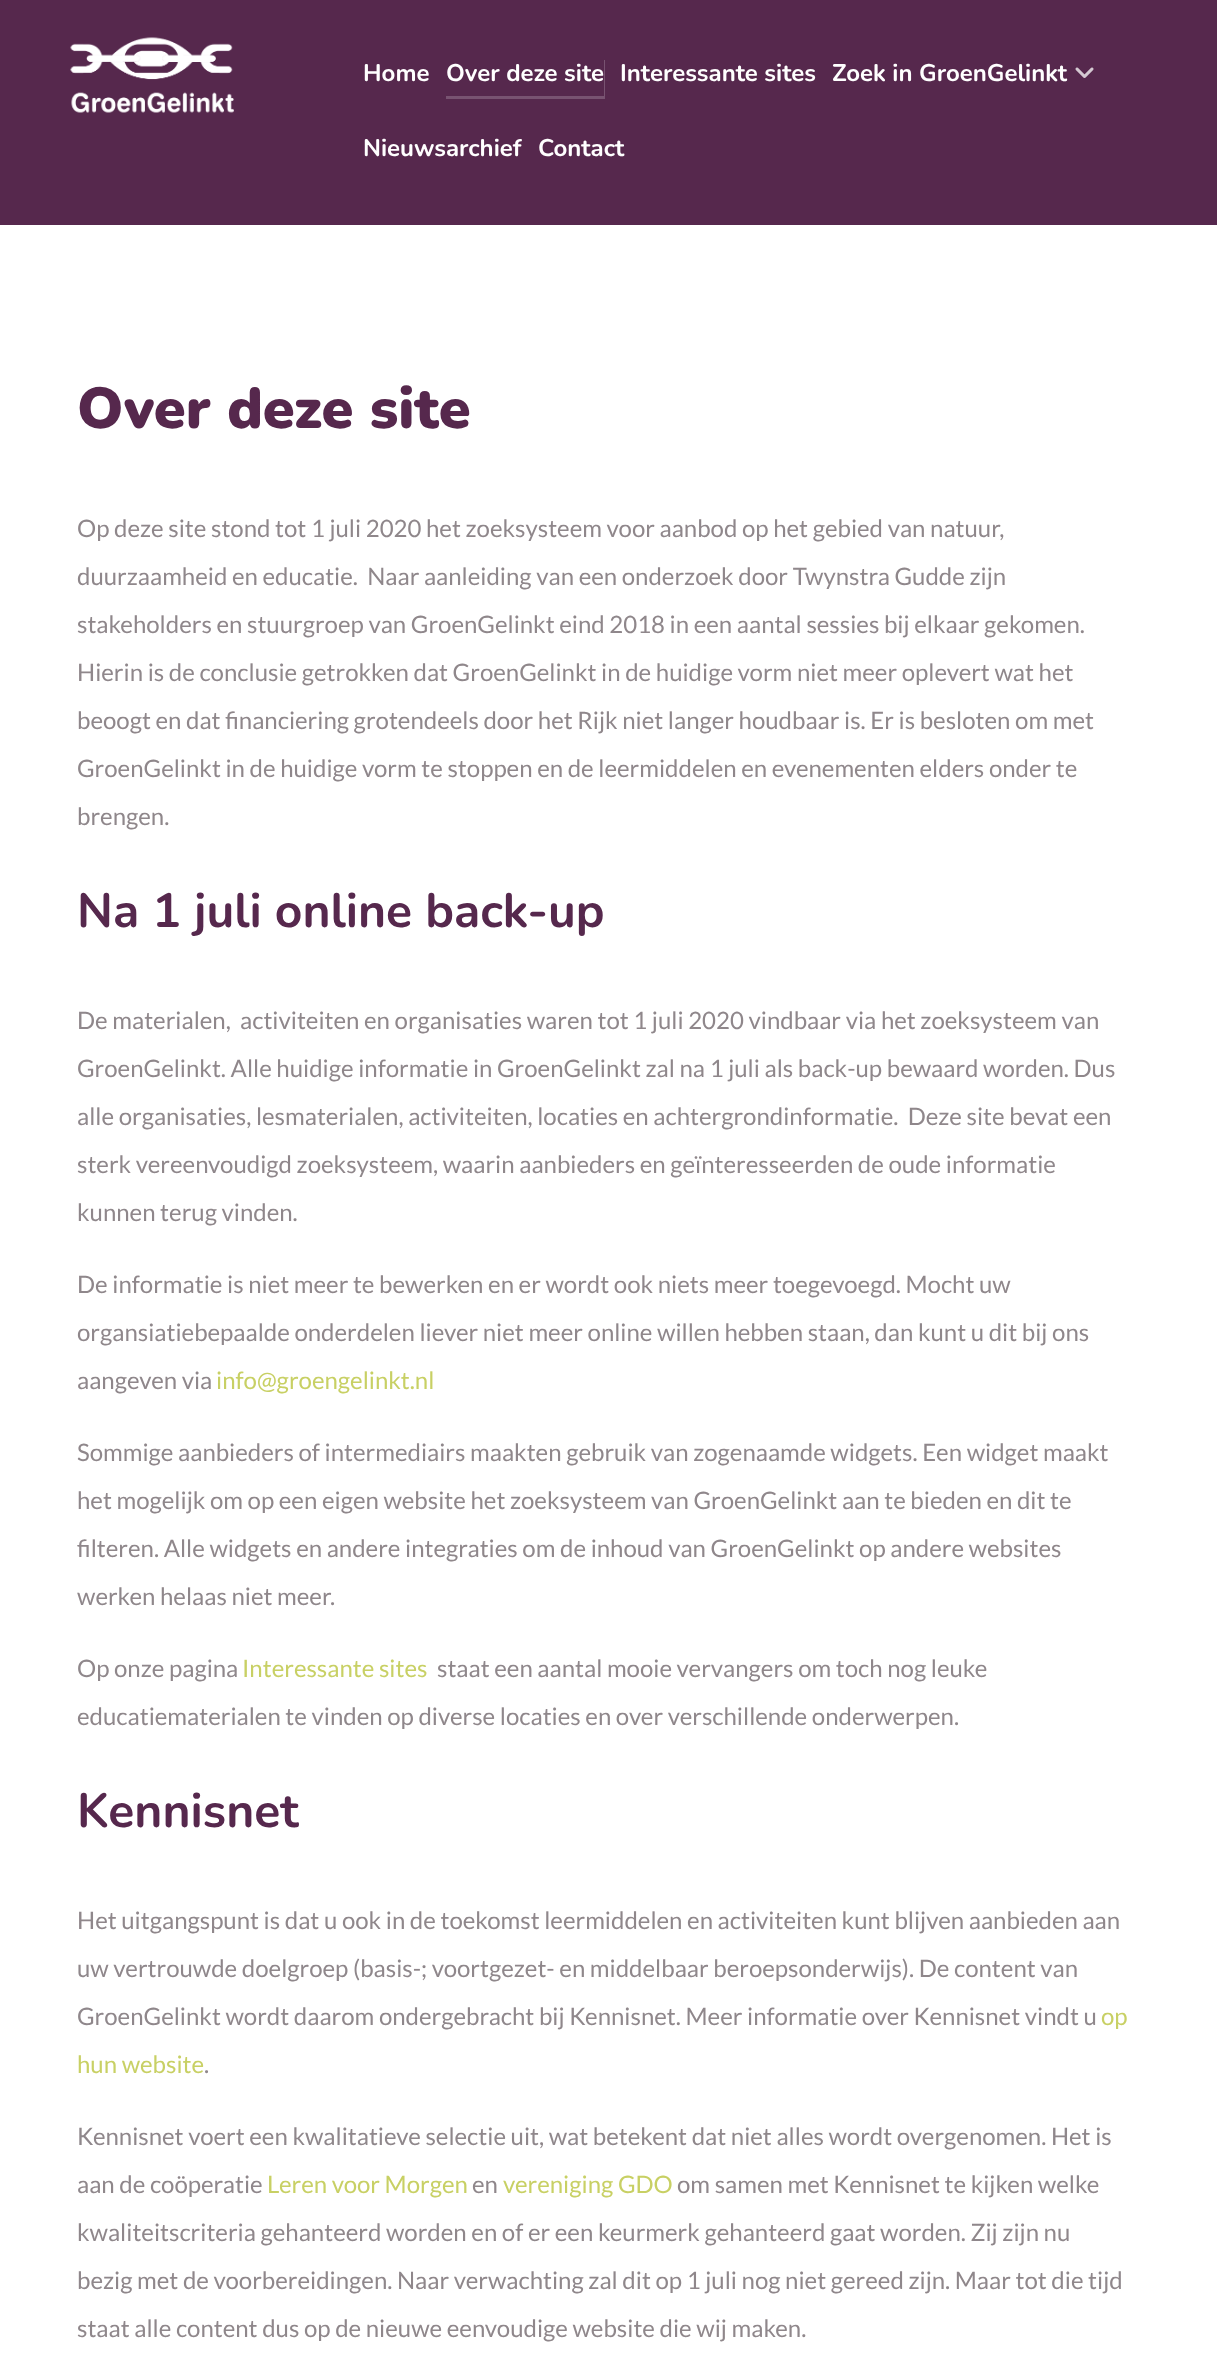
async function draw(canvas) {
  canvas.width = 1217;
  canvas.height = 2360;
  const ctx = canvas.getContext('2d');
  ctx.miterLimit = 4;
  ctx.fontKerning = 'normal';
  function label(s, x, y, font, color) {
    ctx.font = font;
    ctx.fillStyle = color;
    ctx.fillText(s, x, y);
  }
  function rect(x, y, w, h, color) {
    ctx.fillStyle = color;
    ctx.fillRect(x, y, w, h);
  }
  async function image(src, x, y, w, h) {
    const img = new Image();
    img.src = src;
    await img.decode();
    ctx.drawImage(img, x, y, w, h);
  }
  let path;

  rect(0, 0, 1217, 2360, '#fff');
  rect(0, 0, 1217, 225, '#56284d');
  await image('assets/img1.png', 70, 37, 164, 76);
  label('Home', 363, 81, 'bold 24px Nunito', '#fff');
  ctx.fillStyle = '#785371';
  path = new Path2D('M446 96V99H605V60H604V96Z');
  ctx.fill(path);
  label('Over deze site', 446, 81, 'bold 24px Nunito', '#fff');
  label('Interessante sites', 620, 81, 'bold 24px Nunito', '#fff');
  label('Zoek in GroenGelinkt', 832, 81, 'bold 24px Nunito', '#fff');
  await image('assets/img2.png', 1075, 67, 19, 11);
  label('Nieuwsarchief', 363, 156, 'bold 24px Nunito', '#fff');
  label('Contact', 538, 156, 'bold 24px Nunito', '#fff');
  label('Over deze site', 77, 428, '900 57.5px Nunito', '#56284d');
  label('Op deze site stond tot 1 juli 2020 het zoeksysteem voor aanbod op het gebied van natuur,', 77, 537, '24px Lato', '#8f878b');
  label('duurzaamheid en educatie.  Naar aanleiding van een onderzoek door Twynstra Gudde zijn', 77, 585, '24px Lato', '#8f878b');
  label('stakeholders en stuurgroep van GroenGelinkt eind 2018 in een aantal sessies bij elkaar gekomen.', 77, 633, '24px Lato', '#8f878b');
  label('Hierin is de conclusie getrokken dat GroenGelinkt in de huidige vorm niet meer oplevert wat het', 77, 681, '24px Lato', '#8f878b');
  label('beoogt en dat financiering grotendeels door het Rijk niet langer houdbaar is. Er is besloten om met', 77, 729, '24px Lato', '#8f878b');
  label('GroenGelinkt in de huidige vorm te stoppen en de leermiddelen en evenementen elders onder te', 77, 777, '24px Lato', '#8f878b');
  label('brengen.', 77, 825, '24px Lato', '#8f878b');
  label('Na 1 juli online back-up', 77, 927, 'bold 48px Nunito', '#56284d');
  label('De materialen,  activiteiten en organisaties waren tot 1 juli 2020 vindbaar via het zoeksysteem van', 77, 1029, '24px Lato', '#8f878b');
  label('GroenGelinkt. Alle huidige informatie in GroenGelinkt zal na 1 juli als back-up bewaard worden. Dus', 77, 1077, '24px Lato', '#8f878b');
  label('alle organisaties, lesmaterialen, activiteiten, locaties en achtergrondinformatie.  Deze site bevat een', 77, 1125, '24px Lato', '#8f878b');
  label('sterk vereenvoudigd zoeksysteem, waarin aanbieders en geïnteresseerden de oude informatie', 77, 1173, '24px Lato', '#8f878b');
  label('kunnen terug vinden.', 77, 1221, '24px Lato', '#8f878b');
  label('De informatie is niet meer te bewerken en er wordt ook niets meer toegevoegd. Mocht uw', 77, 1293, '24px Lato', '#8f878b');
  label('organsiatiebepaalde onderdelen liever niet meer online willen hebben staan, dan kunt u dit bij ons', 77, 1341, '24px Lato', '#8f878b');
  label('aangeven via', 77, 1389, '24px Lato', '#8f878b');
  label('info@groengelinkt.nl', 216, 1389, '24px Lato', '#c8d064');
  label('Sommige aanbieders of intermediairs maakten gebruik van zogenaamde widgets. Een widget maakt', 77, 1461, '24px Lato', '#8f878b');
  label('het mogelijk om op een eigen website het zoeksysteem van GroenGelinkt aan te bieden en dit te', 77, 1509, '24px Lato', '#8f878b');
  label('filteren. Alle widgets en andere integraties om de inhoud van GroenGelinkt op andere websites', 77, 1557, '24px Lato', '#8f878b');
  label('werken helaas niet meer.', 77, 1605, '24px Lato', '#8f878b');
  label('Op onze pagina', 77, 1677, '24px Lato', '#8f878b');
  label('Interessante sites', 242, 1677, '24px Lato', '#c8d064');
  label('staat een aantal mooie vervangers om toch nog leuke', 437, 1677, '24px Lato', '#8f878b');
  label('educatiematerialen te vinden op diverse locaties en over verschillende onderwerpen.', 77, 1725, '24px Lato', '#8f878b');
  label('Kennisnet', 77, 1827, 'bold 48px Nunito', '#56284d');
  label('Het uitgangspunt is dat u ook in de toekomst leermiddelen en activiteiten kunt blijven aanbieden aan', 77, 1929, '24px Lato', '#8f878b');
  label('uw vertrouwde doelgroep (basis-; voortgezet- en middelbaar beroepsonderwijs). De content van', 77, 1977, '24px Lato', '#8f878b');
  label('GroenGelinkt wordt daarom ondergebracht bij Kennisnet. Meer informatie over Kennisnet vindt u', 77, 2025, '24px Lato', '#8f878b');
  label('op', 1101, 2025, '24px Lato', '#c8d064');
  label('hun website', 77, 2073, '24px Lato', '#c8d064');
  label('.', 204, 2073, '24px Lato', '#8f878b');
  label('Kennisnet voert een kwalitatieve selectie uit, wat betekent dat niet alles wordt overgenomen. Het is', 77, 2145, '24px Lato', '#8f878b');
  label('aan de coöperatie', 77, 2193, '24px Lato', '#8f878b');
  label('Leren voor Morgen', 267, 2193, '24px Lato', '#c8d064');
  label('en', 472, 2193, '24px Lato', '#8f878b');
  label('vereniging GDO', 503, 2193, '24px Lato', '#c8d064');
  label('om samen met Kennisnet te kijken welke', 677, 2193, '24px Lato', '#8f878b');
  label('kwaliteitscriteria gehanteerd worden en of er een keurmerk gehanteerd gaat worden. Zij zijn nu', 77, 2241, '24px Lato', '#8f878b');
  label('bezig met de voorbereidingen. Naar verwachting zal dit op 1 juli nog niet gereed zijn. Maar tot die tijd', 77, 2289, '24px Lato', '#8f878b');
  label('staat alle content dus op de nieuwe eenvoudige website die wij maken.', 77, 2337, '24px Lato', '#8f878b');
}

draw(document.querySelector('canvas'));
